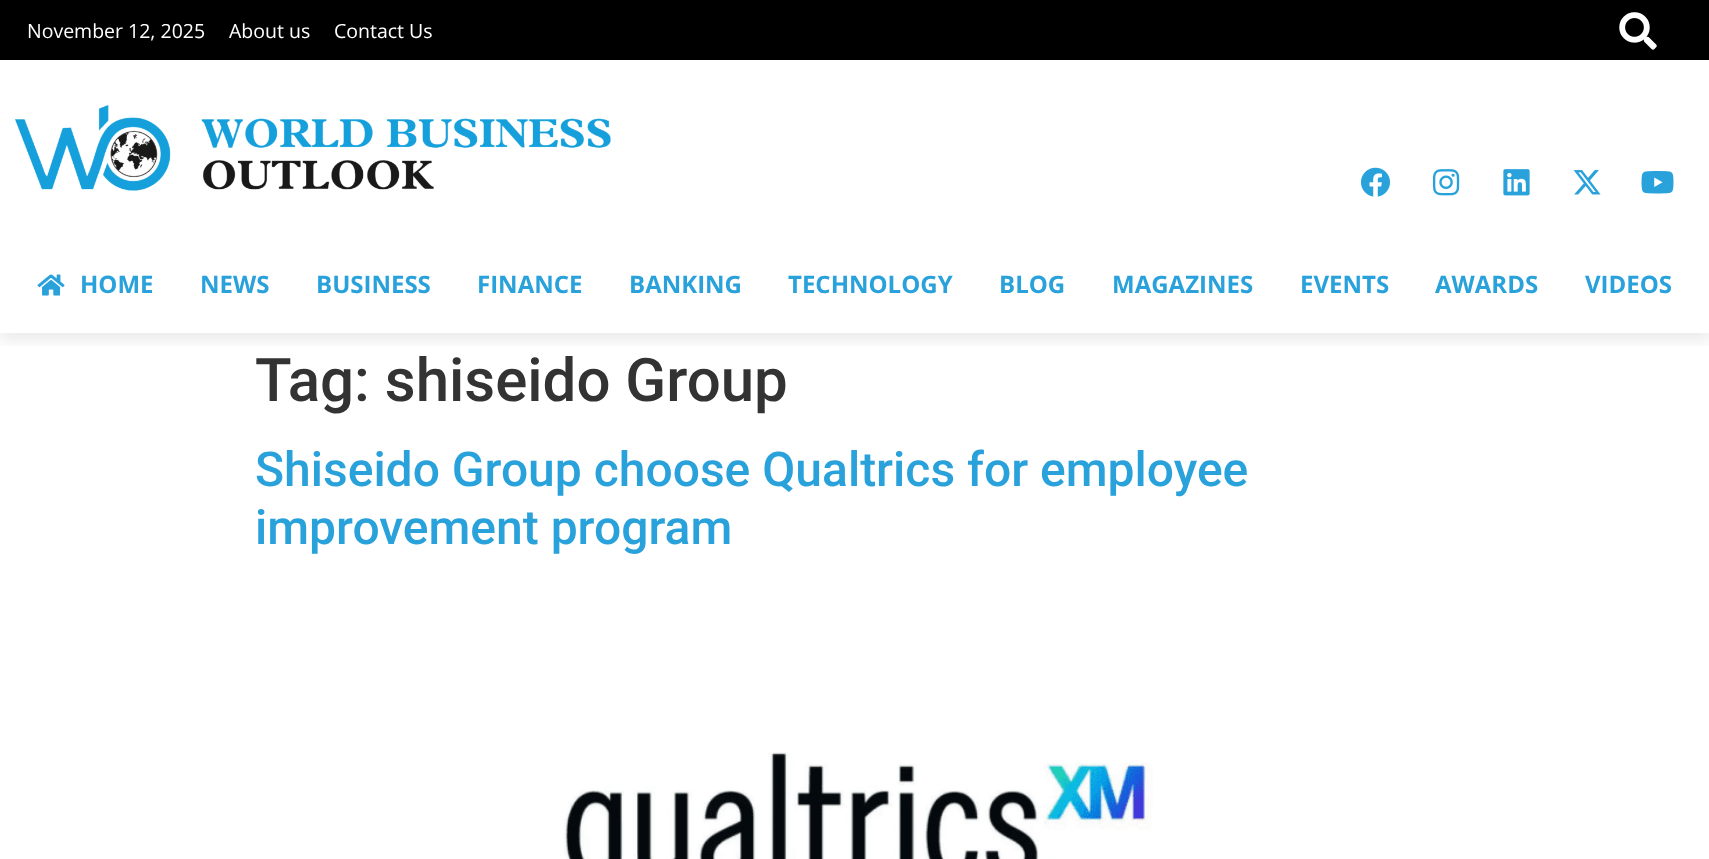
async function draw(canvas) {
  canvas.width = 1709;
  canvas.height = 859;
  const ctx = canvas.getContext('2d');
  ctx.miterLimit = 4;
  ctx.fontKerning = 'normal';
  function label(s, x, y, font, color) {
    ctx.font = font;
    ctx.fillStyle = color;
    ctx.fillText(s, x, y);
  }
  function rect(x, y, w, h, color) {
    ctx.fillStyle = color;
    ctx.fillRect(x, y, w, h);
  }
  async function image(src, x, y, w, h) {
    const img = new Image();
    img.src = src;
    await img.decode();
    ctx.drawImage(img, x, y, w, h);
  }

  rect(0, 0, 1709, 859, '#fff');
  rect(0, 0, 1709, 60, '#000');
  label('November 12, 2025', 27, 38, '19.5px Open Sans', '#fff');
  label('About us', 229, 38, '19.5px Open Sans', '#fff');
  label('Contact Us', 334, 38, '19.5px Open Sans', '#fff');
  await image('assets/img1.png', 1619, 12, 38, 38);
  await image('assets/img2.png', 15, 105, 596, 86);
  await image('assets/img3.png', 1361, 167, 29, 30);
  await image('assets/img4.png', 1432, 169, 28, 27);
  await image('assets/img5.png', 1503, 169, 27, 27);
  await image('assets/img6.png', 1573, 170, 28, 25);
  await image('assets/img7.png', 1641, 171, 33, 23);
  ctx.save();
  ctx.beginPath();
  ctx.rect(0, 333, 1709, 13);
  ctx.clip();
  ctx.fillStyle = '#00000014';
  ctx.filter = 'blur(7.5px)';
  ctx.beginPath();
  ctx.rect(0, 243, 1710, 98);
  ctx.fill();
  ctx.filter = 'none';
  ctx.restore();
  await image('assets/img8.png', 37, 274, 28, 22);
  label('HOME', 80, 293, 'bold 24px Open Sans', '#29a1db');
  label('NEWS', 200, 293, 'bold 24px Open Sans', '#29a1db');
  label('BUSINESS', 316, 293, 'bold 24px Open Sans', '#29a1db');
  label('FINANCE', 477, 293, 'bold 24px Open Sans', '#29a1db');
  label('BANKING', 629, 293, 'bold 24px Open Sans', '#29a1db');
  label('TECHNOLOGY', 788, 293, 'bold 24px Open Sans', '#29a1db');
  label('BLOG', 999, 293, 'bold 24px Open Sans', '#29a1db');
  label('MAGAZINES', 1112, 293, 'bold 24px Open Sans', '#29a1db');
  label('EVENTS', 1300, 293, 'bold 24px Open Sans', '#29a1db');
  label('AWARDS', 1435, 293, 'bold 24px Open Sans', '#29a1db');
  label('VIDEOS', 1585, 293, 'bold 24px Open Sans', '#29a1db');
  label('Tag: shiseido Group', 255, 401, '500 60px Roboto', '#333');
  label('Shiseido Group choose Qualtrics for employee', 255, 486, '500 48px Roboto', '#29a1db');
  label('improvement program', 255, 544, '500 48px Roboto', '#29a1db');
  await image('assets/img9.png', 563, 752, 590, 107);
}

draw(document.querySelector('canvas'));
